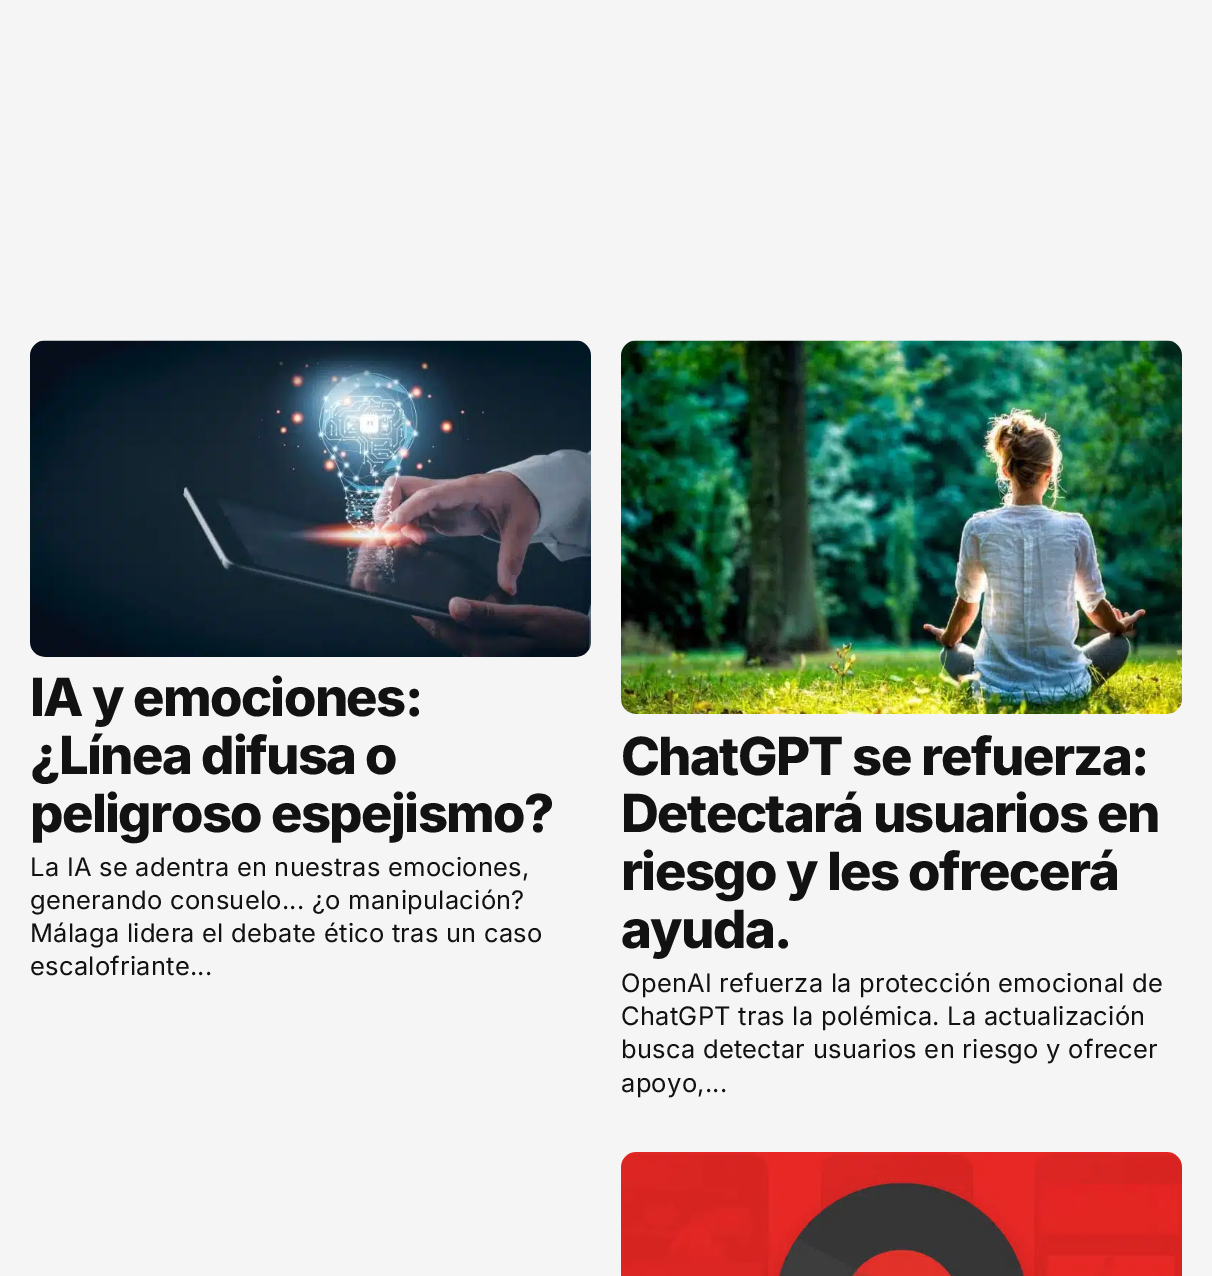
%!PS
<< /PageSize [1212 1276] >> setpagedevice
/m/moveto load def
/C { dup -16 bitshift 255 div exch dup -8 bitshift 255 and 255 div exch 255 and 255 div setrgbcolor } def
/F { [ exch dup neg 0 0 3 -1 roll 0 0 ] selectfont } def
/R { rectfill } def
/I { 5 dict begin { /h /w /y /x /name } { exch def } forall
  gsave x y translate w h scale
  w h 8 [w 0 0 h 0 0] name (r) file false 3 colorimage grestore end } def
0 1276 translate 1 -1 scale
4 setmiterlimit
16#F5F5F5 C
0 0 1212 1276 R
(1.rgb) 30 340 561 317 I
/Inter-ExtraBold 52.5 F
16#121212 C
30 716 m -1.6 0 (IA y emociones:) ashow
30 774 m -1.6 0 (¿Línea difusa o) ashow
30 832 m -1.6 0 (peligroso espejismo?) ashow
/Inter-Regular 25.5 F
30 876 m .25 0 (La IA se adentra en nuestras emociones,) ashow
30 909 m .25 0 (generando consuelo... ¿o manipulación?) ashow
30 942 m .25 0 (Málaga lidera el debate ético tras un caso) ashow
30 975 m .25 0 (escalofriante...) ashow
(2.rgb) 621 340 561 374 I
/Inter-ExtraBold 52.5 F
621 775 m -1.6 0 (ChatGPT se refuerza:) ashow
621 832 m -1.6 0 (Detectará usuarios en) ashow
621 890 m -1.6 0 (riesgo y les ofrecerá) ashow
621 948 m -1.6 0 (ayuda.) ashow
/Inter-Regular 25.5 F
621 992 m .25 0 (OpenAI refuerza la protección emocional de) ashow
621 1025 m .25 0 (ChatGPT tras la polémica. La actualización) ashow
621 1058 m .25 0 (busca detectar usuarios en riesgo y ofrecer) ashow
621 1092 m .25 0 (apoyo,...) ashow
(3.rgb) 621 1152 561 124 I
showpage
